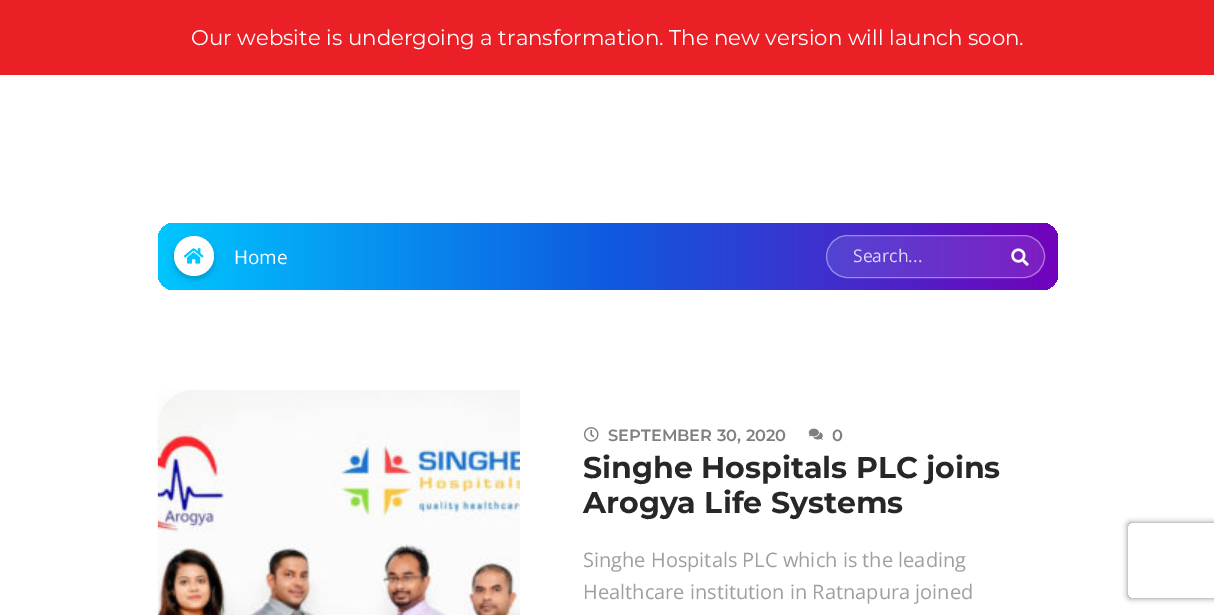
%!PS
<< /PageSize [1214 615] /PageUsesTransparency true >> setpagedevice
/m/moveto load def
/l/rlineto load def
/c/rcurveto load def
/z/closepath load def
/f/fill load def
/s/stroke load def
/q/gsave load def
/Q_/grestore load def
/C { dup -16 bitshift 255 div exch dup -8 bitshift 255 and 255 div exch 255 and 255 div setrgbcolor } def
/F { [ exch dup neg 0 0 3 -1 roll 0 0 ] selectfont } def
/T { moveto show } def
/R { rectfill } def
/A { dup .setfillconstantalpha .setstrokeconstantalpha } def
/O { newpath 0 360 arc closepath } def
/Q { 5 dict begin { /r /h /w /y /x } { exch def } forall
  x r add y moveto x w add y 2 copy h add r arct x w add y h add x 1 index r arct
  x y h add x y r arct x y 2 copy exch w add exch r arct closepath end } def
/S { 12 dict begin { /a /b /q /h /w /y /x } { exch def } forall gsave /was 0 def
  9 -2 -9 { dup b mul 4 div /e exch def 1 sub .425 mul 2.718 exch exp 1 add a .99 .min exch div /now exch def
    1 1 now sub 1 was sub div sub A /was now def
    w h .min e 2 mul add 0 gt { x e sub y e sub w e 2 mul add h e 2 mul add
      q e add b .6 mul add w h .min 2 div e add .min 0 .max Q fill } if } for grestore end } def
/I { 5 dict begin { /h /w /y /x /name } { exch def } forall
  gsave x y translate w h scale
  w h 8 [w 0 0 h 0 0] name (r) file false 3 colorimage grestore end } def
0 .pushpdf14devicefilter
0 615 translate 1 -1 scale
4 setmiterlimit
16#FFFFFF C
0 0 1214 615 R
16#EB2027 C
0 0 1214 75 R
/Montserrat-Regular 21.25 F
16#FFFFFF C
(Our website is undergoing a transformation. The new version will launch soon.) 191 45 T
q 158 223 900 67 16 Q clip newpath
<< /ShadingType 2 /ColorSpace /DeviceRGB /Coords [158 256 1058 256] /Extend [true true] /Function << /FunctionType 3 /Domain [0 1] /Functions [<< /FunctionType 2 /Domain [0 1] /C0 [0 .776 1] /C1 [.059 .353 .878] /N 1 >> << /FunctionType 2 /Domain [0 1] /C0 [.059 .353 .878] /C1 [.447 .008 .733] /N 1 >>] /Bounds [.5] /Encode [0 1 0 1] >> >> shfill Q_
16#000000 C
174 239 40 40 20 3 .2 S
16#FFFFFF C
194 256 20 O f
(1.rgb) 183 248 21 16 I
/OpenSans-Regular 19 F
(Home) 234 264 T
0.1 A
826 235 219 43 21.5 Q f
0.4 A
826.5 235.5 218 42 21 Q s
/OpenSans-Regular 17.5 F
1 A
16#DFD8F5 C
(Search...) 853 262 T
(2.rgb) 1011 248 18 18 I
(3.rgb) 157 390 363 225 I
(4.rgb) 584 427 15 15 I
/Montserrat-SemiBold 16.25 F
16#808080 C
(SEPTEMBER 30, 2020) 608 441 T
(5.rgb) 808 428 15 12 I
(0) 832 441 T
/Montserrat-Bold 30 F
16#272727 C
(Singhe Hospitals PLC joins) 583 478 T
(Arogya Life Systems) 583 513 T
/OpenSans-Regular 20 F
16#9F9F9F C
(Singhe Hospitals PLC which is the leading) 583 567 T
(Healthcare institution in Ratnapura joined) 583 599 T
q
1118 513 m 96 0 l 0 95 l -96 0 l z 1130.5 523 m 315 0 l 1.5 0 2.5 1 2.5 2.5 c 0 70 l 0 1.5 -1 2.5 -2.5 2.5 c -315 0 l -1.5 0 -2.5 -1 -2.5 -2.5 c 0 -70 l 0 -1.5 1 -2.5 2.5 -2.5 c z eoclip newpath
16#808080 C
1128 523 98 75 2.5 3 1 S
Q_
.poppdf14devicefilter showpage
